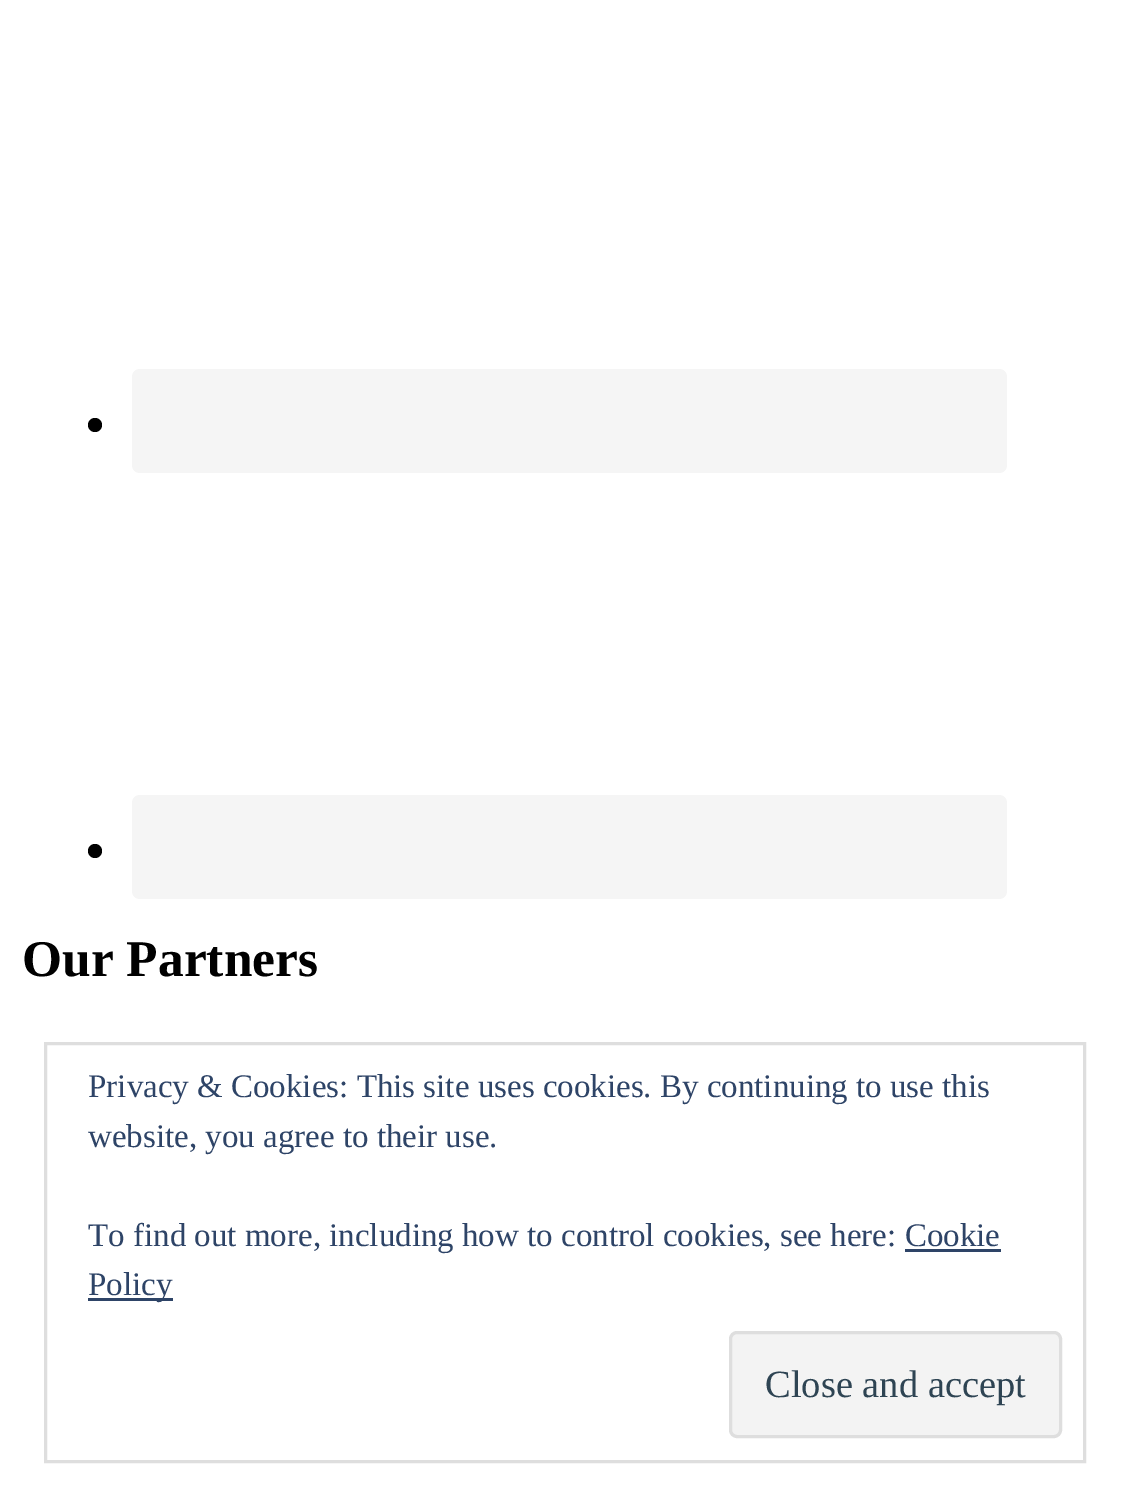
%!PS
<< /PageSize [1128 1507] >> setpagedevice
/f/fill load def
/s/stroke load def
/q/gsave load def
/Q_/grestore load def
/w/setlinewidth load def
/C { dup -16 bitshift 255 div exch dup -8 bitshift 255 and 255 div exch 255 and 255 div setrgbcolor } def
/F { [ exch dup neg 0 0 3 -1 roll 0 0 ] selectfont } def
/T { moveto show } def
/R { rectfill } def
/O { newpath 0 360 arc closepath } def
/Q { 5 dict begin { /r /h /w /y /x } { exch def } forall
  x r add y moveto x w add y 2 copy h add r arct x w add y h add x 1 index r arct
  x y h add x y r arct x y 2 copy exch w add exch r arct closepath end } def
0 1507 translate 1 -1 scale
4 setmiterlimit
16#FFFFFF C
0 0 1128 1507 R
16#000000 C
95 425 7 O f
16#F5F5F5 C
132 369 875 104 8 Q f
16#000000 C
95 851 7 O f
16#F5F5F5 C
132 795 875 104 8 Q f
/LiberationSerif-Bold 51.5 F
16#000000 C
(Our Partners) 22 976 T
16#DEDEDE C
3 w
45.5 1043.5 1039 418 rectstroke
/LiberationSerif-Regular 33 F
16#2E4467 C
(Privacy & Cookies: This site uses cookies. By continuing to use this) 88 1097 T
(website, you agree to their use.) 88 1147 T
(To find out more, including how to control cookies, see here: Cookie) 88 1246 T
88 1298 85 3 R
(Policy) 88 1295 T
905 1249 96 3 R
16#F3F3F3 C
730.5 1332.5 330 104 6.5 Q q f Q_
16#DEDEDE C
s
/LiberationSerif-Regular 38.5 F
16#2E4453 C
(Close and accept) 765 1397 T
showpage
